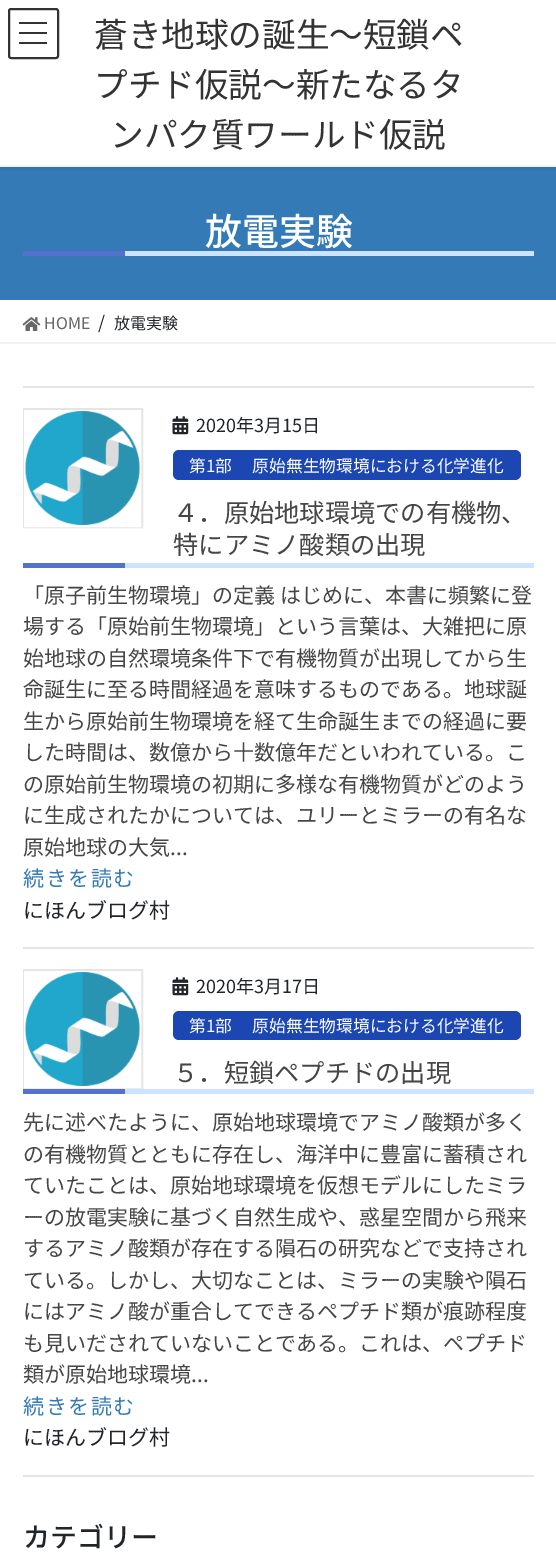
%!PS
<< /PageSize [556 1554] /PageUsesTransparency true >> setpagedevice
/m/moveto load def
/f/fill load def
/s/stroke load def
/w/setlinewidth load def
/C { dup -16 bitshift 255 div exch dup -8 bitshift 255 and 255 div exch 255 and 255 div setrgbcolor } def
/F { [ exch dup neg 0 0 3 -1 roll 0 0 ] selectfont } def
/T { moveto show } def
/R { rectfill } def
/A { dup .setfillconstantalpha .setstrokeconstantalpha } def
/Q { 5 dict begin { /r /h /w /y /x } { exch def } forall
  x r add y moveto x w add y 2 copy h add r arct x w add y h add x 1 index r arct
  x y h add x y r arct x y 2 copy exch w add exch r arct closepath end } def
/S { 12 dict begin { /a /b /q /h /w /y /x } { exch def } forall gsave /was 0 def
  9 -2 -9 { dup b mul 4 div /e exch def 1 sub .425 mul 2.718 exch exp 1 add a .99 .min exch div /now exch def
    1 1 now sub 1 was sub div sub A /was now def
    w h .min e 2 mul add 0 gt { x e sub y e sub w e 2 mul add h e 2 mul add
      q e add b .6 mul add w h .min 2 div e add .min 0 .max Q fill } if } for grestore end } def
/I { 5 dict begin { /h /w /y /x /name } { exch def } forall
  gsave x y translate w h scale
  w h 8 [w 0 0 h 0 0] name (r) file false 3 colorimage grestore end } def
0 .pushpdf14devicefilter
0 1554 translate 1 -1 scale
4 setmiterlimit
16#FFFFFF C
0 0 556 1554 R
16#337AB7 C
0 167 556 133 R
16#000000 C
0 2 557 166 0 2 .1 S
16#FFFFFF C
0 0 556 165 R
16#333333 C
19 22 28 2 R
19 32 28 2 R
19 42 28 2 R
2 w
9 9 49 49 2 Q s
16#F2F2F2 C
0 165 556 2 R
/NotoSansJP-Regular 33.6 F
16#333333 C
(蒼き地球の誕生〜短鎖ペ) 94 47 T
(プチド仮説〜新たなるタ) 94 97 T
(ンパク質ワールド仮説) 110 147 T
16#CCE4FF C
125 251 409 5 R
/NotoSansJP-Medium 37 F
16#FFFFFF C
(放電実験) 205 245 T
16#5472CD C
23 251 102 5 R
16#F2F2F2 C
0 342 556 2 R
(1.rgb) 22 317 19 14 I
/NotoSansJP-Regular 16 F
16#666666 C
(HOME) 44 329 T
/NotoSansJP-Regular 18 F
16#212529 C
(/) 98 329 T
/NotoSansJP-Regular 16 F
(放電実験) 114 329 T
16#E5E5E5 C
23 386 511 2 R
23 947 511 2 R
24 409 118 118 rectstroke
16#FFFFFF C
25 411 115 115 rectstroke
(2.rgb) 25 411 115 114 I
(3.rgb) 172 416 17 19 I
/NotoSansJP-Regular 18 F
16#212529 C
(2020年3月15日) 196 432 T
16#1C47B2 C
173 450 348 30 6 Q f
/NotoSansJP-Regular 16.75 F
16#FFFFFF C
(第1部 　原始無生物環境における化学進化) 189 472 T
16#CCE4FF C
125 563 409 5 R
/NotoSansJP-Regular 25.25 F
16#464646 C
(４．原始地球環境での有機物、) 173 522 T
(特にアミノ酸類の出現) 173 554 T
16#5472CD C
23 563 102 5 R
/NotoSansJP-Regular 21 F
16#464646 C
(「原子前生物環境」の定義 はじめに、本書に頻繁に登) 23 603 T
(場する「原始前生物環境」という言葉は、大雑把に原) 23 634 T
(始地球の自然環境条件下で有機物質が出現してから生) 23 666 T
(命誕生に至る時間経過を意味するものである。地球誕) 23 697 T
(生から原始前生物環境を経て生命誕生までの経過に要) 23 729 T
(した時間は、数億から十数億年だといわれている。こ) 23 760 T
(の原始前生物環境の初期に多様な有機物質がどのよう) 23 792 T
(に生成されたかについては、ユリーとミラーの有名な) 23 823 T
(原始地球の大気...) 23 855 T
16#337AB7 C
23 886 m 1.5 0 (続きを読む) ashow
16#212529 C
(にほんブログ村) 23 918 T
16#E5E5E5 C
23 1475 511 2 R
24 970 118 118 rectstroke
16#FFFFFF C
25 972 115 115 rectstroke
(2.rgb) 25 972 115 114 I
(3.rgb) 172 977 17 19 I
/NotoSansJP-Regular 18 F
16#212529 C
(2020年3月17日) 196 993 T
16#1C47B2 C
173 1011 348 29 6 Q f
/NotoSansJP-Regular 16.75 F
16#FFFFFF C
(第1部 　原始無生物環境における化学進化) 189 1032 T
16#CCE4FF C
125 1089 409 5 R
/NotoSansJP-Regular 25.25 F
16#464646 C
(５．短鎖ペプチドの出現) 173 1082 T
16#5472CD C
23 1089 102 5 R
/NotoSansJP-Regular 21 F
16#464646 C
(先に述べたように、原始地球環境でアミノ酸類が多く) 23 1130 T
(の有機物質とともに存在し、海洋中に豊富に蓄積され) 23 1162 T
(ていたことは、原始地球環境を仮想モデルにしたミラ) 23 1193 T
(ーの放電実験に基づく自然生成や、惑星空間から飛来) 23 1225 T
(するアミノ酸類が存在する隕石の研究などで支持され) 23 1256 T
(ている。しかし、大切なことは、ミラーの実験や隕石) 23 1288 T
(にはアミノ酸が重合してできるペプチド類が痕跡程度) 23 1319 T
(も見いだされていないことである。これは、ペプチド) 23 1351 T
(類が原始地球環境...) 23 1382 T
16#337AB7 C
23 1414 m 1.5 0 (続きを読む) ashow
16#212529 C
(にほんブログ村) 23 1445 T
/NotoSansJP-Medium 27 F
(カテゴリー) 23 1547 T
.poppdf14devicefilter showpage
